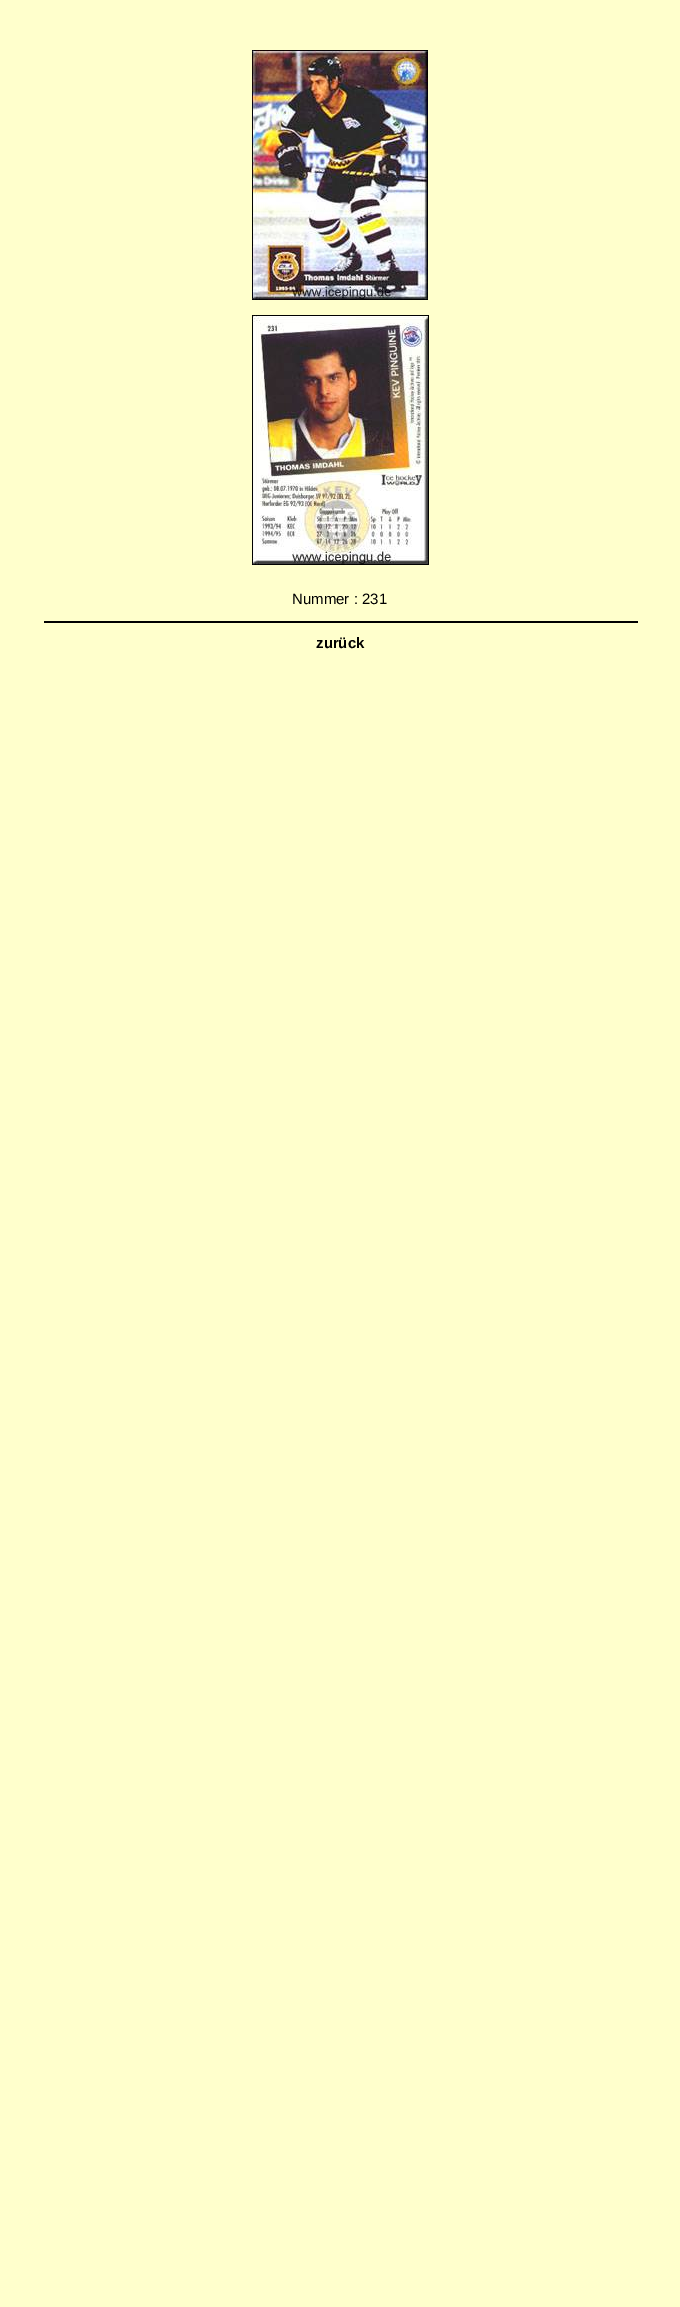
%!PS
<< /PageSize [680 2307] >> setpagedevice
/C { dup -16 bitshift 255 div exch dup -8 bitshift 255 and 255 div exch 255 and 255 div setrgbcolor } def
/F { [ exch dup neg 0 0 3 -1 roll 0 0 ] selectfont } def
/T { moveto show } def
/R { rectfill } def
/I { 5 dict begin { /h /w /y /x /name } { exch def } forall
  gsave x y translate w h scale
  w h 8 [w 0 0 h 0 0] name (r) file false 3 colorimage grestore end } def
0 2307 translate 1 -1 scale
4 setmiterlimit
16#FFFFCC C
0 0 680 2307 R
(1.rgb) 252 50 176 250 I
(2.rgb) 252 315 177 250 I
/LiberationSans-Regular 15 F
16#000000 C
(Nummer : 231) 292 604 T
44 621 594 2 R
/LiberationSans-Bold 15 F
(zurück) 316 648 T
showpage
